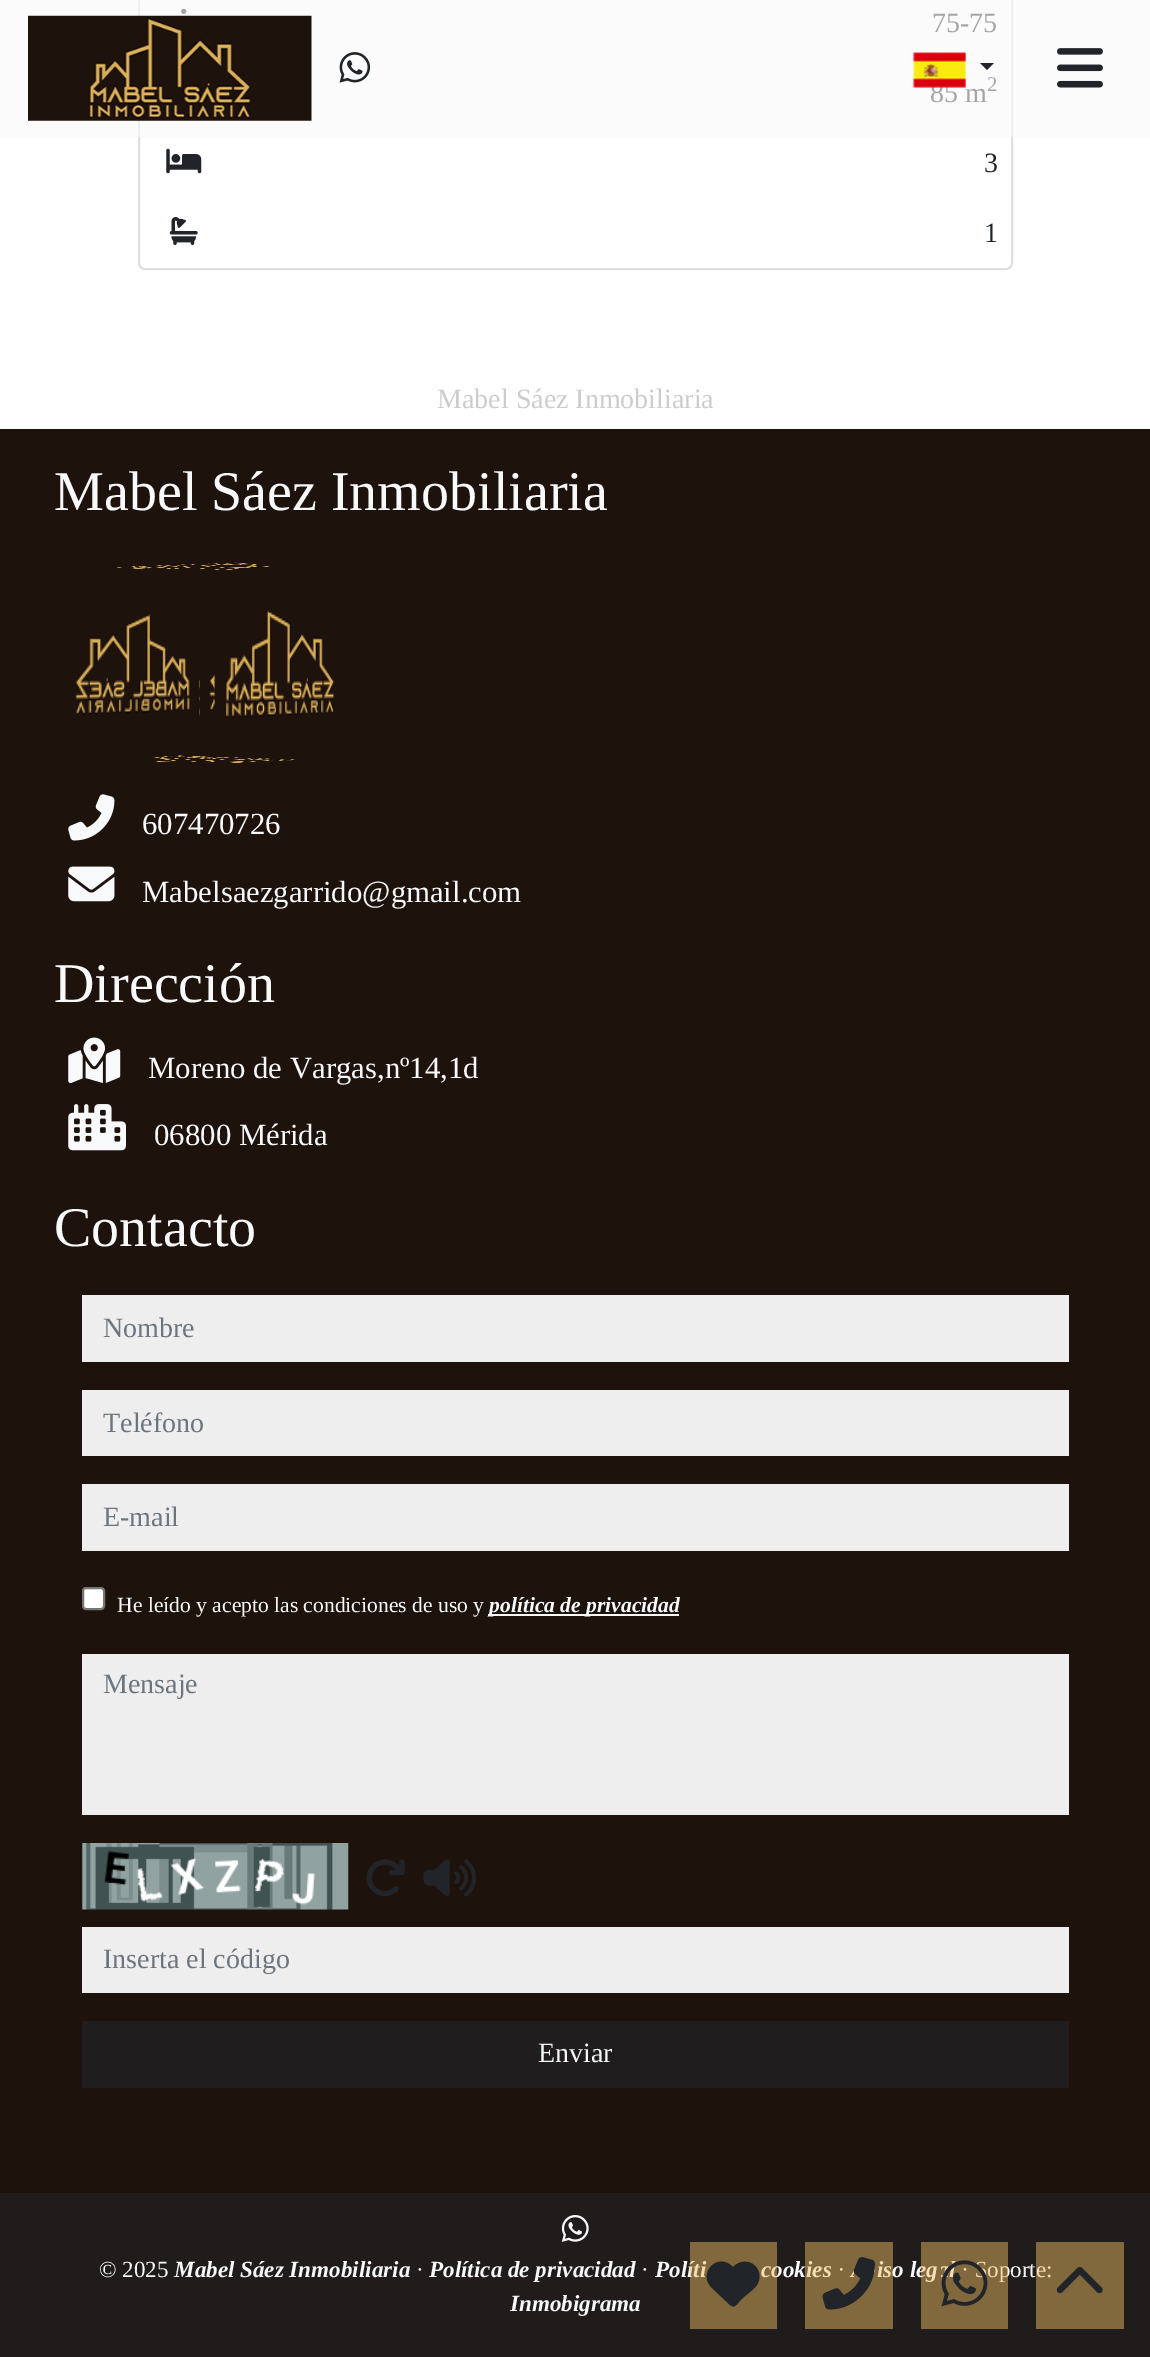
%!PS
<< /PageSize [1150 2357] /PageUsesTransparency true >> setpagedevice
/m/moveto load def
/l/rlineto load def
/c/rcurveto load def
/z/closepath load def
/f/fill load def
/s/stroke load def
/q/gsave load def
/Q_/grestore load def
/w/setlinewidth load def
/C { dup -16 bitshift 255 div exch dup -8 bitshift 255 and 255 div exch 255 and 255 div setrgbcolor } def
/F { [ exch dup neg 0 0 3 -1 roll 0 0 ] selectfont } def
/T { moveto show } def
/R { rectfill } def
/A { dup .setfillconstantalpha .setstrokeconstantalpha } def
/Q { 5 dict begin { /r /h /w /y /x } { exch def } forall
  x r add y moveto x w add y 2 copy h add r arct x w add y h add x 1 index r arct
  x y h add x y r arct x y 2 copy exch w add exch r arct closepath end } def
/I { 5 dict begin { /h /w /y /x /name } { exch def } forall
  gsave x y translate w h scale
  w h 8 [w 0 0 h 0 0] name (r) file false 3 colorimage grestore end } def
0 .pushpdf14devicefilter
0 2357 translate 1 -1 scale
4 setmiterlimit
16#FFFFFF C
0 0 1150 2357 R
16#DFDFDF C
2 w
139 -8 873 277 6 Q s
(5.rgb) 181 8 6 6 I
/LiberationSerif-Regular 28 F
16#212529 C
(75-75) 932 32 T
(85 m) 930 102 T
/LiberationSerif-Regular 21 F
(2) 987 91 T
0.6 A
16#F8F9FA C
0 0 1150 137 R
1 A
(1.rgb) 28 15 284 106 I
(2.rgb) 339 52 32 31 I
(3.rgb) 912 52 54 36 I
16#212529 C
980 63 m 14 0 l -7 7 l z f
(4.rgb) 1057 48 46 40 I
(6.rgb) 166 148 36 26 I
/LiberationSerif-Regular 28 F
(3) 984 172 T
(7.rgb) 169 217 29 28 I
(1) 984 242 T
16#CCCCCC C
(Mabel Sáez Inmobiliaria) 437 408 T
16#1E120D C
0 429 1150 1764 R
/LiberationSerif-Regular 56 F
16#F8F9FA C
(Mabel Sáez Inmobiliaria) 54 510 T
(8.rgb) 117 562 153 8 I
(9.rgb) 75 610 129 109 I
(12.rgb) 199 614 132 105 I
(10.rgb) 75 610 125 108 I
(11.rgb) 214 610 121 108 I
(13.rgb) 153 755 149 8 I
(14.rgb) 68 794 47 47 I
/LiberationSerif-Regular 30.75 F
(607470726) 142 834 T
(15.rgb) 68 866 47 36 I
(Mabelsaezgarrido@gmail.com) 142 902 T
/LiberationSerif-Regular 56 F
(Dirección) 54 1002 T
(16.rgb) 68 1037 53 47 I
/LiberationSerif-Regular 30.75 F
(Moreno de Vargas,nº14,1d) 148 1078 T
(17.rgb) 68 1104 58 47 I
(06800 Mérida) 154 1145 T
/LiberationSerif-Regular 56 F
(Contacto) 54 1246 T
16#EEEEEE C
82 1295 987 67 R
/LiberationSerif-Regular 28 F
16#6C757D C
(Nombre) 103 1337 T
16#EEEEEE C
82 1390 987 66 R
16#6C757D C
(Teléfono) 103 1432 T
16#EEEEEE C
82 1484 987 67 R
16#6C757D C
(E-mail) 103 1526 T
16#FFFFFF C
83 1588 21 21 3 Q q f Q_
16#767676 C
s
/LiberationSerif-Regular 21.6 F
16#F8F9FA C
(He leído y acepto las condiciones de uso y) 117 1612 T
488 1614 191 2 R
/LiberationSerif-BoldItalic 21.6 F
(política de privacidad) 489 1612 T
16#EEEEEE C
82 1654 987 161 R
/LiberationSerif-Regular 28 F
16#6C757D C
(Mensaje) 103 1693 T
(18.rgb) 82 1843 267 67 I
(19.rgb) 366 1859 39 37 I
(20.rgb) 423 1859 53 38 I
16#EEEEEE C
82 1927 987 66 R
16#6C757D C
(Inserta el código) 103 1968 T
16#201D1E C
82 2021 987 67 R
16#F8F9FA C
(Enviar) 538 2062 T
16#201C1C C
0 2193 1150 164 R
(21.rgb) 561 2215 28 27 I
/LiberationSerif-Regular 23.1 F
16#F8F9FA C
(© 2025) 99 2277 T
/LiberationSerif-BoldItalic 23.1 F
(Mabel Sáez Inmobiliaria) 174 2277 T
/LiberationSerif-Regular 23.1 F
(·) 416 2277 T
/LiberationSerif-BoldItalic 23.1 F
(Política de privacidad) 429 2277 T
/LiberationSerif-Regular 23.1 F
(·) 641 2277 T
/LiberationSerif-BoldItalic 23.1 F
(Políti) 655 2277 T
(cookies) 761 2277 T
/LiberationSerif-Regular 23.1 F
(·) 837 2277 T
/LiberationSerif-BoldItalic 23.1 F
(iso leg) 877 2277 T
/LiberationSerif-Regular 23.1 F
(·) 961 2277 T
(oporte:) 987 2277 T
/LiberationSerif-BoldItalic 23.1 F
(Inmobigrama) 510 2311 T
0.47 A
16#EFC062 C
690 2242 87 87 R
1 A
16#212529 C
712 2288 m 18 17 l -18 -17 l 15 14 l 6 6 7 6 12 0 c 6 -6 l 5 -4 11 -8 13 -13 c 7 -16 -12 -29 -25 -16 c -16 -16 -36 7 -21 21 c z f
0.47 A
16#EFC062 C
805 2242 88 87 R
1 A
(22.rgb) 822 2257 53 53 I
0.47 A
921 2242 87 87 R
1 A
(23.rgb) 941 2260 47 47 I
0.47 A
1036 2242 88 87 R
1 A
(24.rgb) 1056 2267 47 27 I
.poppdf14devicefilter showpage
